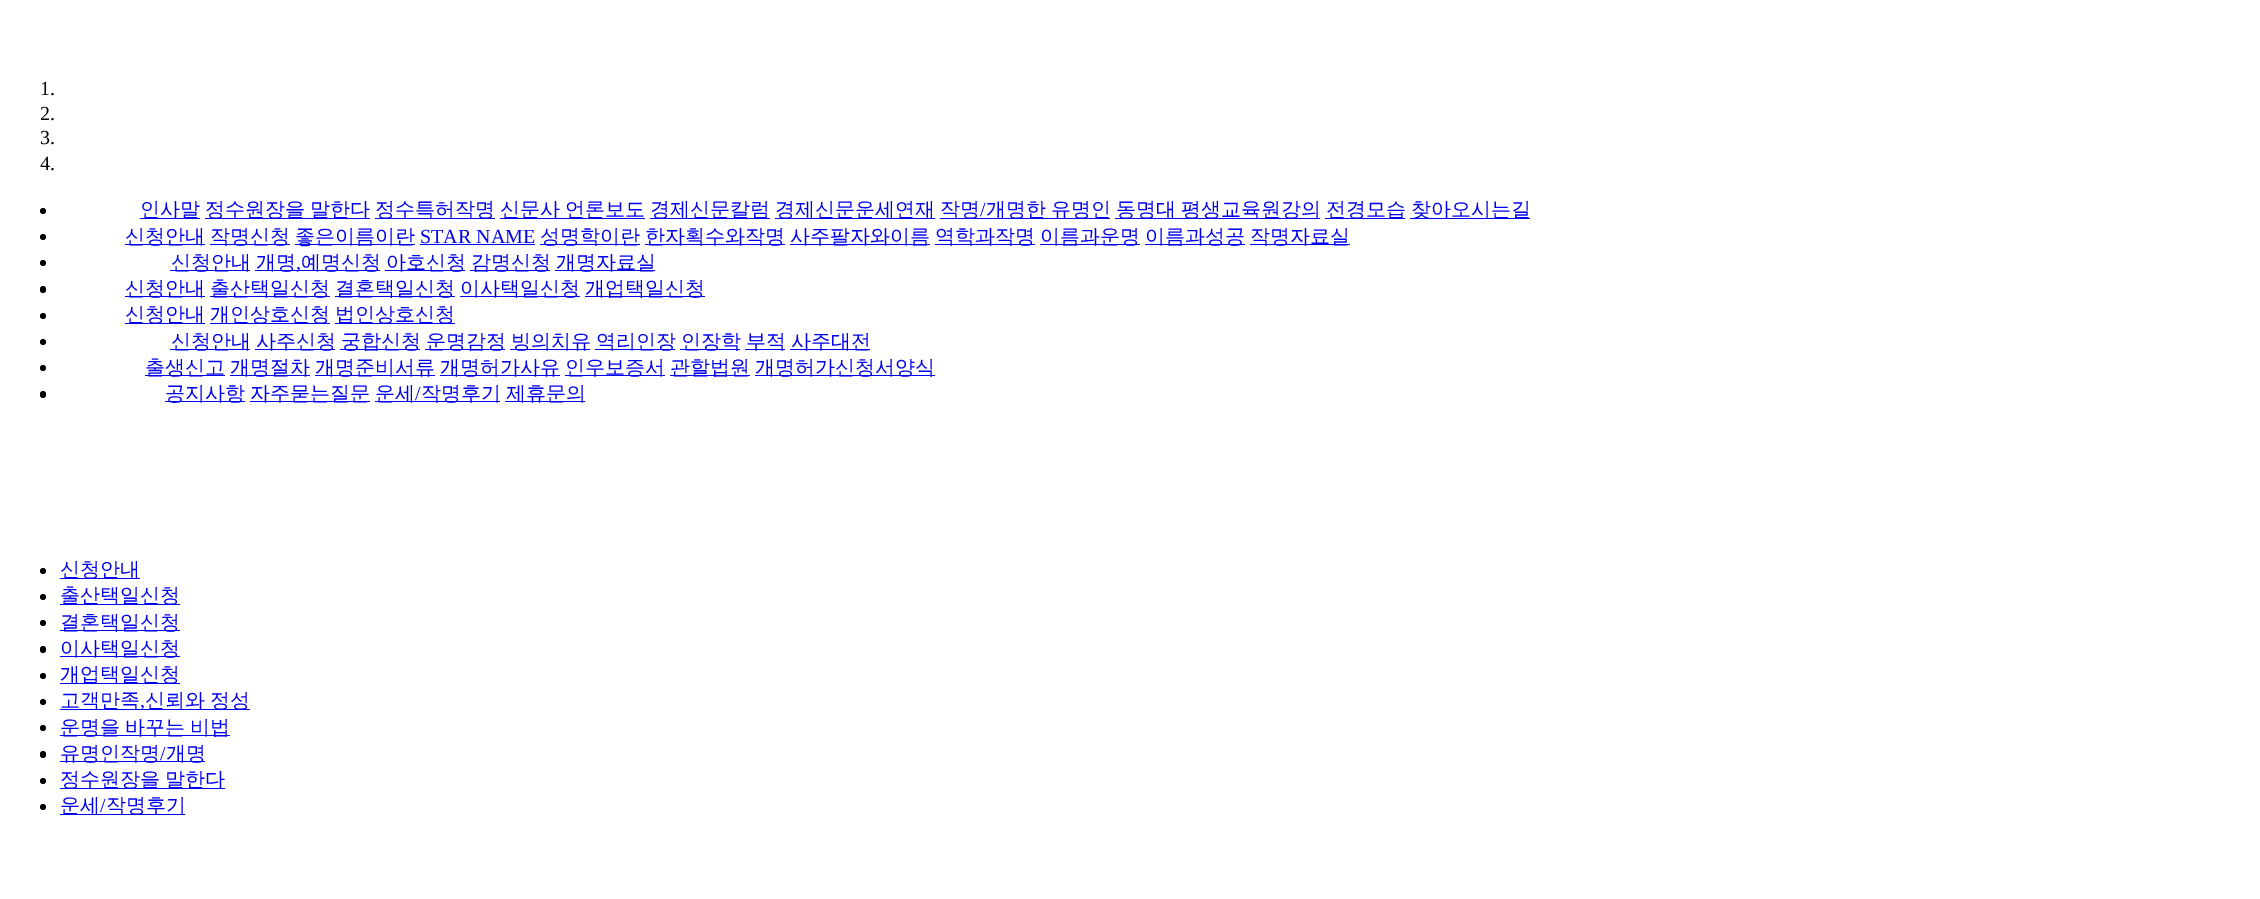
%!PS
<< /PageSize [2260 899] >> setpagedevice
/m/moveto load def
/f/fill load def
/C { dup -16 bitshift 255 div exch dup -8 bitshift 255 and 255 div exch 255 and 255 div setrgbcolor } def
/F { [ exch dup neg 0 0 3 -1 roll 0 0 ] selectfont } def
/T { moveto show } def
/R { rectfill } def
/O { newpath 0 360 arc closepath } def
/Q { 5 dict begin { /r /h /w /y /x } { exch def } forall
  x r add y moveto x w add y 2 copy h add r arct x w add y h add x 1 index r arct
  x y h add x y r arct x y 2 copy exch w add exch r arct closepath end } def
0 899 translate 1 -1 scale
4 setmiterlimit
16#FFFFFF C
0 0 2260 899 R
/LiberationSerif-Regular 20 F
16#000000 C
(1.) 40 95 T
(2.) 40 120 T
(3.) 40 144 T
(4.) 40 170 T
43 211 3 O f
16#0000EE C
140 218 60 1 R
/WenQuanYiZenHei-Medium 20 F
(인사말) 140 216 T
205 218 165 1 R
205 216 m -1 0 32 (정수원장을 말한다) widthshow
375 218 120 1 R
(정수특허작명) 375 216 T
500 218 145 1 R
500 216 m -1 0 32 (신문사 언론보도) widthshow
650 218 120 1 R
(경제신문칼럼) 650 216 T
775 218 160 1 R
(경제신문운세연재) 775 216 T
940 218 170 1 R
(작명) 940 216 T
/LiberationSerif-Regular 20 F
(/) 980 216 T
/WenQuanYiZenHei-Medium 20 F
986 216 m -1 0 32 (개명한 유명인) widthshow
1115 218 205 1 R
1116 216 m -1 0 32 (동명대 평생교육원강의) widthshow
1325 218 80 1 R
(전경모습) 1326 216 T
1410 218 120 1 R
(찾아오시는길) 1411 216 T
16#000000 C
43 237 3 O f
16#0000EE C
125 244 80 1 R
(신청안내) 125 243 T
210 244 80 1 R
(작명신청) 210 243 T
295 244 120 1 R
(좋은이름이란) 295 243 T
/LiberationSerif-Regular 20 F
(STAR NAME) 420 243 T
420 244 115 1 R
540 244 100 1 R
/WenQuanYiZenHei-Medium 20 F
(성명학이란) 540 243 T
645 244 140 1 R
(한자획수와작명) 645 243 T
790 244 140 1 R
(사주팔자와이름) 790 243 T
935 244 100 1 R
(역학과작명) 935 243 T
1040 244 100 1 R
(이름과운명) 1040 243 T
1145 244 100 1 R
(이름과성공) 1145 243 T
1250 244 100 1 R
(작명자료실) 1250 243 T
16#000000 C
43 263 3 O f
16#0000EE C
170 270 80 1 R
(신청안내) 171 269 T
255 270 125 1 R
(개명) 256 269 T
(예명신청) 301 269 T
385 270 80 1 R
(아호신청) 386 269 T
470 270 80 1 R
(감명신청) 471 269 T
555 270 100 1 R
(개명자료실) 556 269 T
/LiberationSerif-Regular 20 F
(,) 296 269 T
16#000000 C
40 286 6 7 3 Q f
16#0000EE C
125 296 80 1 R
/WenQuanYiZenHei-Medium 20 F
(신청안내) 125 295 T
210 296 120 1 R
(출산택일신청) 210 295 T
335 296 120 1 R
(결혼택일신청) 335 295 T
460 296 120 1 R
(이사택일신청) 460 295 T
585 296 120 1 R
(개업택일신청) 585 295 T
16#000000 C
43 316 3 O f
16#0000EE C
125 323 80 1 R
(신청안내) 125 321 T
210 323 120 1 R
(개인상호신청) 210 321 T
335 323 120 1 R
(법인상호신청) 335 321 T
16#000000 C
43 342 3 O f
16#0000EE C
170 349 80 1 R
(신청안내) 171 348 T
255 349 80 1 R
(사주신청) 256 348 T
340 349 80 1 R
(궁합신청) 341 348 T
425 349 80 1 R
(운명감정) 426 348 T
510 349 80 1 R
(빙의치유) 511 348 T
595 349 80 1 R
(역리인장) 596 348 T
680 349 60 1 R
(인장학) 681 348 T
745 349 40 1 R
(부적) 746 348 T
790 349 80 1 R
(사주대전) 791 348 T
16#000000 C
43 368 3 O f
16#0000EE C
145 375 80 1 R
(출생신고) 145 374 T
230 375 80 1 R
(개명절차) 230 374 T
315 375 120 1 R
(개명준비서류) 315 374 T
440 375 120 1 R
(개명허가사유) 440 374 T
565 375 100 1 R
(인우보증서) 565 374 T
670 375 80 1 R
(관할법원) 670 374 T
755 375 180 1 R
(개명허가신청서양식) 755 374 T
16#000000 C
40 391 6 7 3 Q f
16#0000EE C
165 401 80 1 R
(공지사항) 165 400 T
250 401 120 1 R
(자주묻는질문) 250 400 T
375 401 125 1 R
(운세) 375 400 T
/LiberationSerif-Regular 20 F
(/) 415 400 T
/WenQuanYiZenHei-Medium 20 F
(작명후기) 421 400 T
505 401 80 1 R
(제휴문의) 506 400 T
16#000000 C
43 571 3 O f
16#0000EE C
60 578 80 1 R
(신청안내) 60 576 T
16#000000 C
43 597 3 O f
16#0000EE C
60 604 120 1 R
(출산택일신청) 60 602 T
16#000000 C
43 623 3 O f
16#0000EE C
60 630 120 1 R
(결혼택일신청) 60 629 T
16#000000 C
40 646 6 7 3 Q f
16#0000EE C
60 656 120 1 R
(이사택일신청) 60 655 T
16#000000 C
43 676 3 O f
16#0000EE C
60 683 120 1 R
(개업택일신청) 60 681 T
16#000000 C
43 702 3 O f
16#0000EE C
60 709 190 1 R
(고객만족) 60 707 T
145 707 m -1 0 32 (신뢰와 정성) widthshow
/LiberationSerif-Regular 20 F
(,) 140 707 T
16#000000 C
43 728 3 O f
16#0000EE C
60 735 170 1 R
/WenQuanYiZenHei-Medium 20 F
60 734 m -1 0 32 (운명을 바꾸는 비법) widthshow
16#000000 C
40 751 6 7 3 Q f
16#0000EE C
60 761 145 1 R
(유명인작명) 60 760 T
/LiberationSerif-Regular 20 F
(/) 160 760 T
/WenQuanYiZenHei-Medium 20 F
(개명) 166 760 T
16#000000 C
43 781 3 O f
16#0000EE C
60 788 165 1 R
60 786 m -1 0 32 (정수원장을 말한다) widthshow
16#000000 C
43 807 3 O f
16#0000EE C
60 814 125 1 R
(운세) 60 812 T
/LiberationSerif-Regular 20 F
(/) 100 812 T
/WenQuanYiZenHei-Medium 20 F
(작명후기) 106 812 T
showpage
